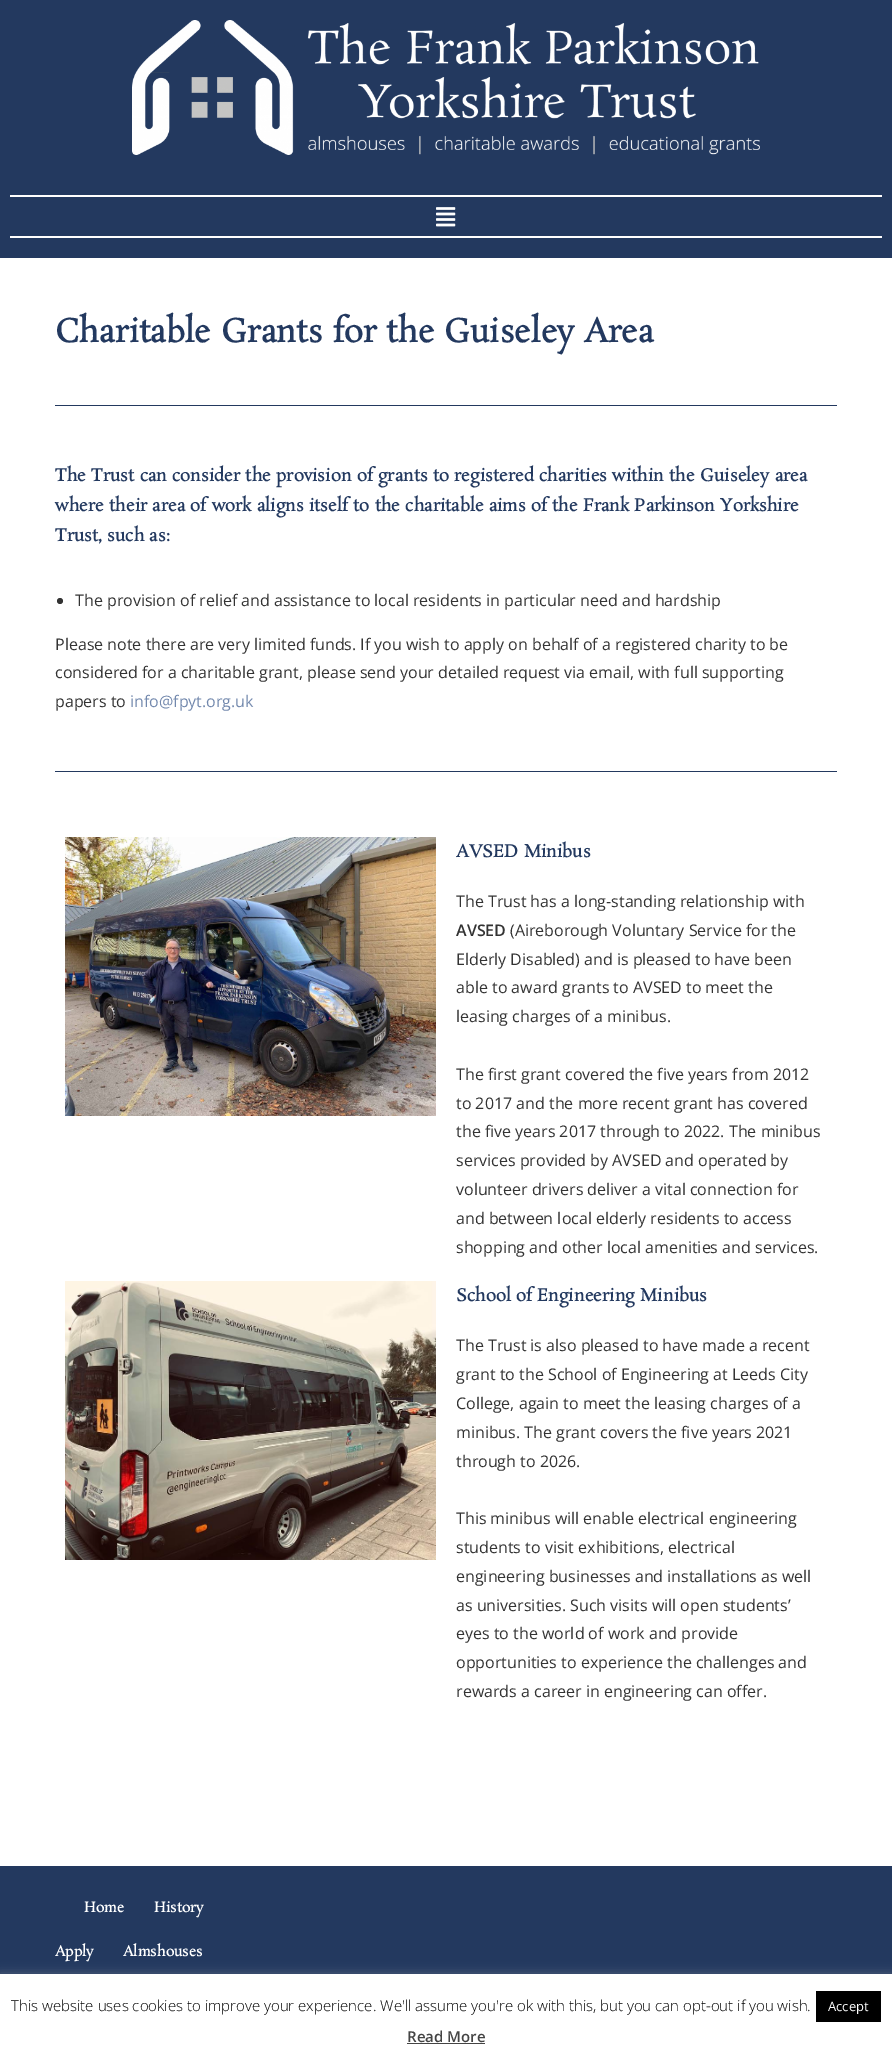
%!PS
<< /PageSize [892 2062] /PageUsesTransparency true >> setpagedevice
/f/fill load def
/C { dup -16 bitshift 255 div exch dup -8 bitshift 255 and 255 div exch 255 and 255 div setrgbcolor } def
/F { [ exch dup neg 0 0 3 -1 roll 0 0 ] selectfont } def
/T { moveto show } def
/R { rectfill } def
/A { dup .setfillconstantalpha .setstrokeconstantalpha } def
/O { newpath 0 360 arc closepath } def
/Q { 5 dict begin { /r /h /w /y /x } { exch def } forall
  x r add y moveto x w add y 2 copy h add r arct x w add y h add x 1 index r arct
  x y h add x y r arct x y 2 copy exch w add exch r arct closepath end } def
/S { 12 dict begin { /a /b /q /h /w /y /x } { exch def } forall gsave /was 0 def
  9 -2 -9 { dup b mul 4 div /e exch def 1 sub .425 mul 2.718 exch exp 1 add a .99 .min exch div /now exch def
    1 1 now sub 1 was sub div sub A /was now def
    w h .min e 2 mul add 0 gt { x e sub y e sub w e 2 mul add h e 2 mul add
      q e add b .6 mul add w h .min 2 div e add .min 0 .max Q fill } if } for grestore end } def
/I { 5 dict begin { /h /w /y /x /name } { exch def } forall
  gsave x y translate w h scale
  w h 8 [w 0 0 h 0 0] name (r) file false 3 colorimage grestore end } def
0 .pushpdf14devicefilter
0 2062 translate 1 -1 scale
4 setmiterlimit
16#FFFFFF C
0 0 892 2062 R
16#23395F C
0 0 892 258 R
(1.rgb) 132 20 628 135 I
16#FFFFFF C
10 195 872 2 R
10 236 872 2 R
(2.rgb) 436 207 20 20 I
/Rosarivo-Bold 32 F
16#23395F C
(Charitable Grants for the Guiseley Area) 55 342 T
55 405 782 1 R
/Rosarivo-Bold 17 F
(The Trust can consider the provision of grants to registered charities within the Guiseley area) 55 481 T
(where their area of work aligns itself to the charitable aims of the Frank Parkinson Yorkshire) 55 511 T
(Trust, such as:) 55 541 T
16#333333 C
60 601 3 O f
/OpenSans-Regular 16 F
(The provision of relief and assistance to local residents in particular need and hardship) 75 606 T
(Please note there are very limited funds. If you wish to apply on behalf of a registered charity to be) 55 650 T
(considered for a charitable grant, please send your detailed request via email, with full supporting) 55 678 T
(papers to) 55 707 T
16#7288AD C
(info@fpyt.org.uk) 130 707 T
16#23395F C
55 771 782 1 R
(3.rgb) 65 837 371 279 I
/Rosarivo-Bold 17 F
(AVSED Minibus) 456 857 T
/OpenSans-Regular 16 F
16#333333 C
(The Trust has a long-standing relationship with) 456 907 T
/OpenSans-SemiBold 16 F
(AVSED) 456 936 T
/OpenSans-Regular 16 F
(\(Aireborough Voluntary Service for the) 510 936 T
(Elderly Disabled\) and is pleased to have been) 456 965 T
(able to award grants to AVSED to meet the) 456 993 T
(leasing charges of a minibus.) 456 1022 T
(The first grant covered the five years from 2012) 456 1080 T
(to 2017 and the more recent grant has covered) 456 1109 T
(the five years 2017 through to 2022. The minibus) 456 1137 T
(services provided by AVSED and operated by) 456 1166 T
(volunteer drivers deliver a vital connection for) 456 1195 T
(and between local elderly residents to access) 456 1224 T
(shopping and other local amenities and services.) 456 1253 T
(4.rgb) 65 1281 371 279 I
/Rosarivo-Bold 17 F
16#23395F C
(School of Engineering Minibus) 456 1301 T
/OpenSans-Regular 16 F
16#333333 C
(The Trust is also pleased to have made a recent) 456 1351 T
(grant to the School of Engineering at Leeds City) 456 1380 T
(College, again to meet the leasing charges of a) 456 1409 T
(minibus. The grant covers the five years 2021) 456 1438 T
(through to 2026.) 456 1467 T
(This minibus will enable electrical engineering) 456 1524 T
(students to visit exhibitions, electrical) 456 1553 T
(engineering businesses and installations as well) 456 1582 T
(as universities. Such visits will open students’) 456 1611 T
(eyes to the world of work and provide) 456 1639 T
(opportunities to experience the challenges and) 456 1668 T
(rewards a career in engineering can offer.) 456 1697 T
16#23395F C
0 1866 892 108 R
/Rosarivo-Bold 14 F
16#FFFFFF C
(Home) 84 1912 T
(History) 154 1912 T
(Apply) 55 1956 T
(Almshouses) 123 1956 T
16#ACABAB C
0 1973 892 88 0 5 .3 S
16#FFFFFF C
0 1974 892 88 R
/OpenSans-Light 15 F
16#000000 C
(This website uses cookies to improve your experience. We'll assume you're ok with this, but you can opt-out if you wish.) 11 2011 T
816 1991 65 31 R
/OpenSans-Regular 13 F
16#FFFFFF C
(Accept) 828 2011 T
/OpenSans-SemiBold 15 F
16#444444 C
(Read More) 407 2042 T
407 2043 78 1 R
.poppdf14devicefilter showpage
